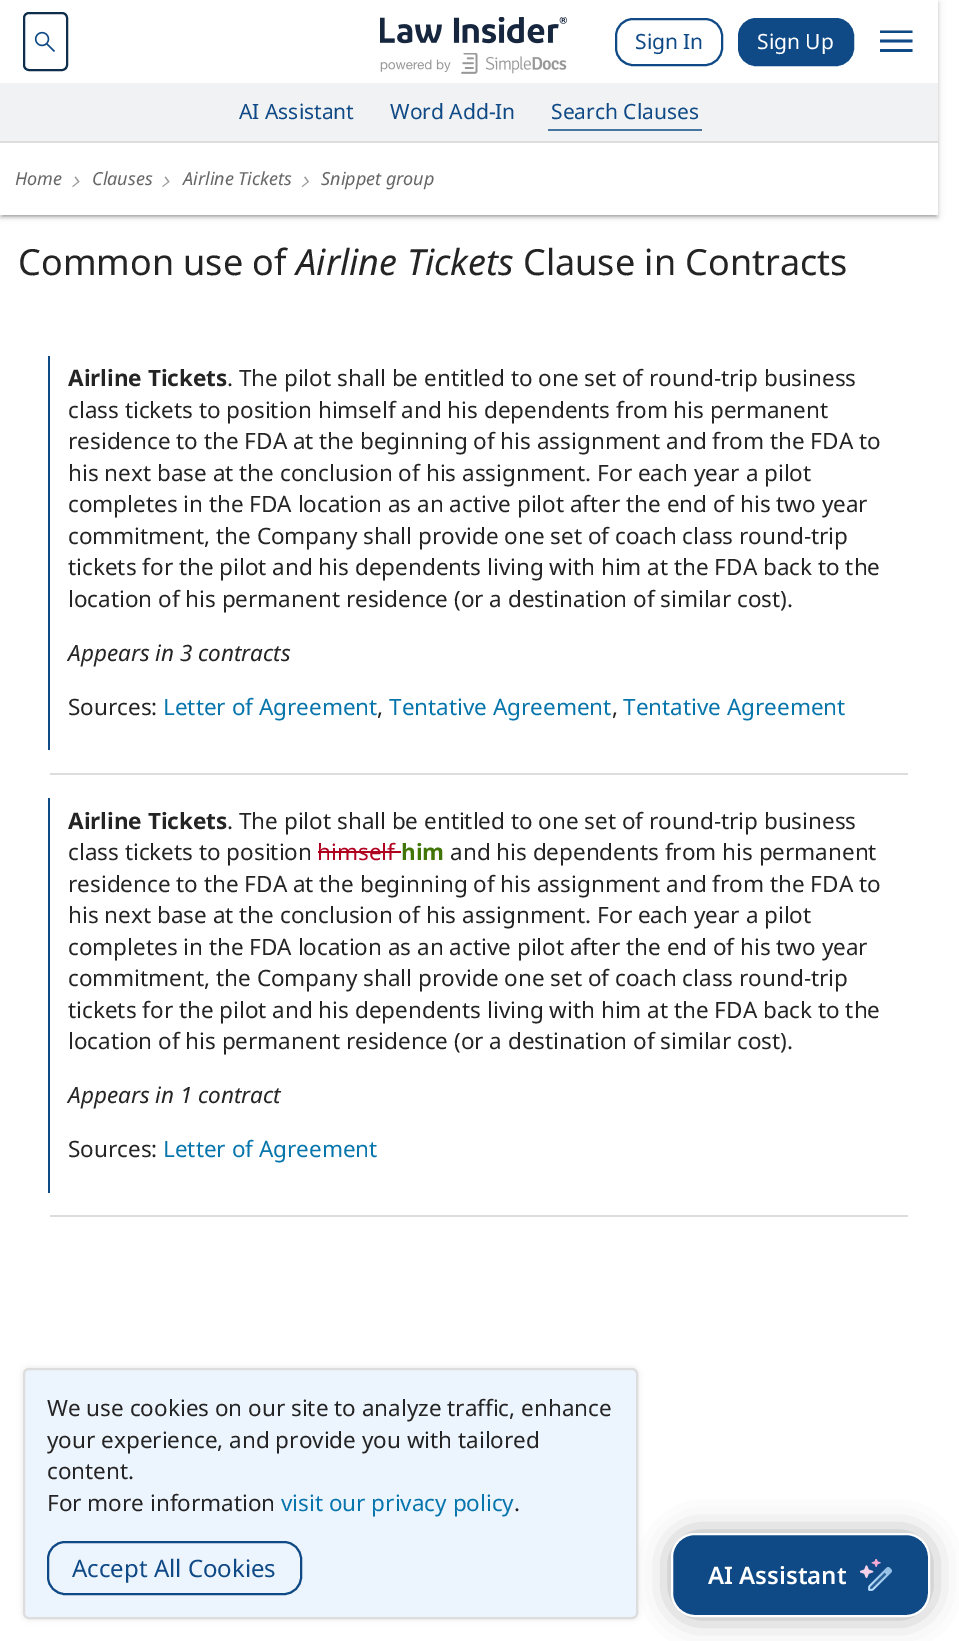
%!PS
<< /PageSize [959 1641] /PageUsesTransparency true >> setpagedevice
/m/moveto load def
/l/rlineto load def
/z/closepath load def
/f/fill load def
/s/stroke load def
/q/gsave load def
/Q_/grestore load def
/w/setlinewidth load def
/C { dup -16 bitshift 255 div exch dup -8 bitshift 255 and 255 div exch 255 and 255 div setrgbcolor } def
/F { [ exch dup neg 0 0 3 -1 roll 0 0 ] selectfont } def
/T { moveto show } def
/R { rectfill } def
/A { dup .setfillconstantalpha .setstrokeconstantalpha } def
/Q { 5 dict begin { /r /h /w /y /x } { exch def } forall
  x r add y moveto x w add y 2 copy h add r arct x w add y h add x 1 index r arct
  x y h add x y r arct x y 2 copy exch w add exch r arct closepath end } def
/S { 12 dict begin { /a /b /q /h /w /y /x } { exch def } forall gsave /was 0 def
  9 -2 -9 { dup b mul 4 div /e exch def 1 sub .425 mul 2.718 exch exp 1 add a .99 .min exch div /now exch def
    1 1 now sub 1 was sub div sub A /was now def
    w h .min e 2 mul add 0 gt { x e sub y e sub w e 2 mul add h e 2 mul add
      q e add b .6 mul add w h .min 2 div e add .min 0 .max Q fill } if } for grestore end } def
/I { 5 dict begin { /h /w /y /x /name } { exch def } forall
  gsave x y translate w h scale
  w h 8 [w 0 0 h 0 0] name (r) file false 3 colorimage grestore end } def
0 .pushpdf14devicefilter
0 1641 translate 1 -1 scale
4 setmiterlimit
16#FFFFFF C
0 0 959 1641 R
16#000000 C
0 2 938 214 0 4 .12 S
0 3 938 215 0 1.5 .14 S
3 8 932 208 0 1 .2 S
16#FFFFFF C
0 0 938 215 R
16#0F2E4B C
2 w
24 13 43 57 5 Q s
(1.rgb) 34 31 21 21 I
(2.rgb) 380 17 187 27 I
(3.rgb) 380 53 187 21 I
16#0F4A86 C
616 19 106 46 17 Q s
/NotoSans-Regular 21 F
(Sign In) 635 49 T
739 19 114 46 17 Q q f Q_
s
16#FFFFFF C
(Sign Up) 757 49 T
16#0F4A86 C
880 52 m 0 -3 l 32.5 0 l 0 3 l z 880 42.5 m 0 -3 l 32.5 0 l 0 3 l z 880 33 m 0 -2.5 l 32.5 0 l 0 2.5 l z f
16#F1F2F3 C
0 83 938 58 R
16#0F4A86 C
(AI Assistant) 239 119 T
(Word Add-In) 390 119 T
16#4874A1 C
548 129 154 2 R
16#0F4A86 C
(Search Clauses) 551 119 T
16#DDDDDD C
0 141 938 2 R
/NotoSans-Italic 18 F
16#666666 C
(Home) 15 185 T
(4.rgb) 72 176 8 11 I
(Clauses) 92 185 T
(4.rgb) 162 176 8 11 I
(Airline Tickets) 183 185 T
(5.rgb) 301 176 8 11 I
(Snippet group) 321 185 T
16#000000 C
23 1368 615 251 6 3 .1 S
671 1533 259 84 24 15 .33 S
16#ECF4FD C
24 1369 613 249 5 Q q f Q_
16#DDDDDD C
s
/NotoSans-Regular 22.5 F
16#242424 C
(We use cookies on our site to analyze traffic, enhance) 47 1416 T
(your experience, and provide you with tailored) 47 1448 T
(content.) 47 1479 T
(For more information) 47 1511 T
16#0675AC C
(visit our privacy policy) 281 1511 T
16#242424 C
(.) 514 1511 T
16#0F4A86 C
48 1542 253 52 17 Q s
/NotoSans-Regular 24 F
(Accept All Cookies) 72 1577 T
/NotoSans-Regular 36 F
16#242424 C
(Common use of) 18 275 T
/NotoSans-Italic 36 F
(Airline Tickets) 296 275 T
/NotoSans-Regular 36 F
(Clause in Contracts) 523 275 T
16#0F4A86 C
48 356 2 394 R
/NotoSans-Bold 22.5 F
16#242424 C
(Airline Tickets) 68 386 T
/NotoSans-Regular 22.5 F
(. The pilot shall be entitled to one set of round-trip business) 227 386 T
(class tickets to position himself and his dependents from his permanent) 68 418 T
(residence to the FDA at the beginning of his assignment and from the FDA to) 68 449 T
(his next base at the conclusion of his assignment. For each year a pilot) 68 481 T
(completes in the FDA location as an active pilot after the end of his two year) 68 512 T
(commitment, the Company shall provide one set of coach class round-trip) 68 544 T
(tickets for the pilot and his dependents living with him at the FDA back to the) 68 575 T
(location of his permanent residence \(or a destination of similar cost\).) 68 607 T
/NotoSans-Italic 22.5 F
(Appears in 3 contracts) 68 661 T
/NotoSans-Regular 22.5 F
(Sources:) 68 715 T
16#0675AC C
(Letter of Agreement) 163 715 T
16#242424 C
(,) 377 715 T
16#0675AC C
(Tentative Agreement) 389 715 T
16#242424 C
(,) 612 715 T
16#0675AC C
(Tentative Agreement) 623 715 T
16#DDDDDD C
50 773 858 2 R
16#0F4A86 C
48 798 2 395 R
/NotoSans-Bold 22.5 F
16#242424 C
(Airline Tickets) 68 829 T
/NotoSans-Regular 22.5 F
(. The pilot shall be entitled to one set of round-trip business) 227 829 T
(class tickets to position) 68 860 T
16#B00020 C
(himself) 317 860 T
318 851 83 2 R
/NotoSans-Bold 22.5 F
16#417505 C
(him) 401 860 T
/NotoSans-Regular 22.5 F
16#242424 C
(and his dependents from his permanent) 450 860 T
(residence to the FDA at the beginning of his assignment and from the FDA to) 68 892 T
(his next base at the conclusion of his assignment. For each year a pilot) 68 923 T
(completes in the FDA location as an active pilot after the end of his two year) 68 955 T
(commitment, the Company shall provide one set of coach class round-trip) 68 986 T
(tickets for the pilot and his dependents living with him at the FDA back to the) 68 1018 T
(location of his permanent residence \(or a destination of similar cost\).) 68 1049 T
/NotoSans-Italic 22.5 F
(Appears in 1 contract) 68 1103 T
/NotoSans-Regular 22.5 F
(Sources:) 68 1157 T
16#0675AC C
(Letter of Agreement) 163 1157 T
16#DDDDDD C
50 1215 858 2 R
16#0F4A86 C
672 1534 257 82 23 Q q f Q_
16#FFFFFF C
s
/NotoSans-SemiBold 24 F
(AI Assistant) 708 1584 T
(6.rgb) 860 1559 32 32 I
.poppdf14devicefilter showpage
